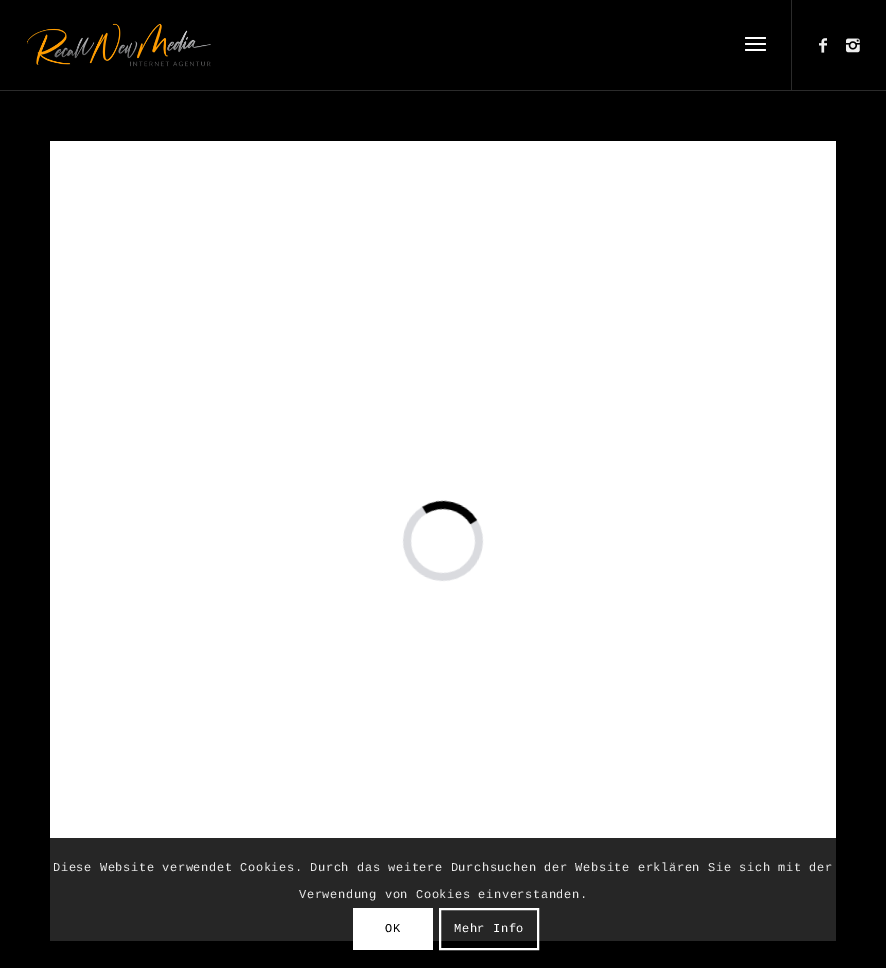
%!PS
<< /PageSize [886 968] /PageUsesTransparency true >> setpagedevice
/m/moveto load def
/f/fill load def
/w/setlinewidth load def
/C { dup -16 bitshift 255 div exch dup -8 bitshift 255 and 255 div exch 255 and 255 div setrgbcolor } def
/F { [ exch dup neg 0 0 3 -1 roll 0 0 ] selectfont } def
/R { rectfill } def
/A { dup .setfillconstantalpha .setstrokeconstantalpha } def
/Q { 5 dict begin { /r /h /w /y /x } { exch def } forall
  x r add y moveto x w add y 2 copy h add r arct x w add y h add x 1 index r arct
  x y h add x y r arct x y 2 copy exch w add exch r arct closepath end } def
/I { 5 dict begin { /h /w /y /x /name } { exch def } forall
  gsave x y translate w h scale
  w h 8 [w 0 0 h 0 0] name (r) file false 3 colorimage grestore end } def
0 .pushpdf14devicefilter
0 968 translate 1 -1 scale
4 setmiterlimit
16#000000 C
0 0 886 968 R
16#2B2B2B C
0 90 886 1 R
(1.rgb) 27 23 184 44 I
791 0 1 90 R
16#FFFFFF C
745 43 21 2 1 Q f
745 37 21 2 1 Q f
745 49 21 2 1 Q f
(2.rgb) 819 38 8 15 I
(3.rgb) 846 38 14 15 I
(4.rgb) 50 141 786 800 I
0.85 A
16#000000 C
50 838 786 103 R
/LiberationMono-Regular 12 F
1 A
16#E9E9E9 C
53 871 m .6 0 (Diese Website verwendet Cookies. Durch das weitere Durchsuchen der Website erklären Sie sich mit der) ashow
299 898 m .6 0 (Verwendung von Cookies einverstanden.) ashow
16#FFFFFF C
353 908 80 42 R
16#000000 C
385 932 m .6 0 (OK) ashow
16#FFFFFF C
2 w
440 909 98 40 rectstroke
454 932 m .6 0 (Mehr Info) ashow
.poppdf14devicefilter showpage
